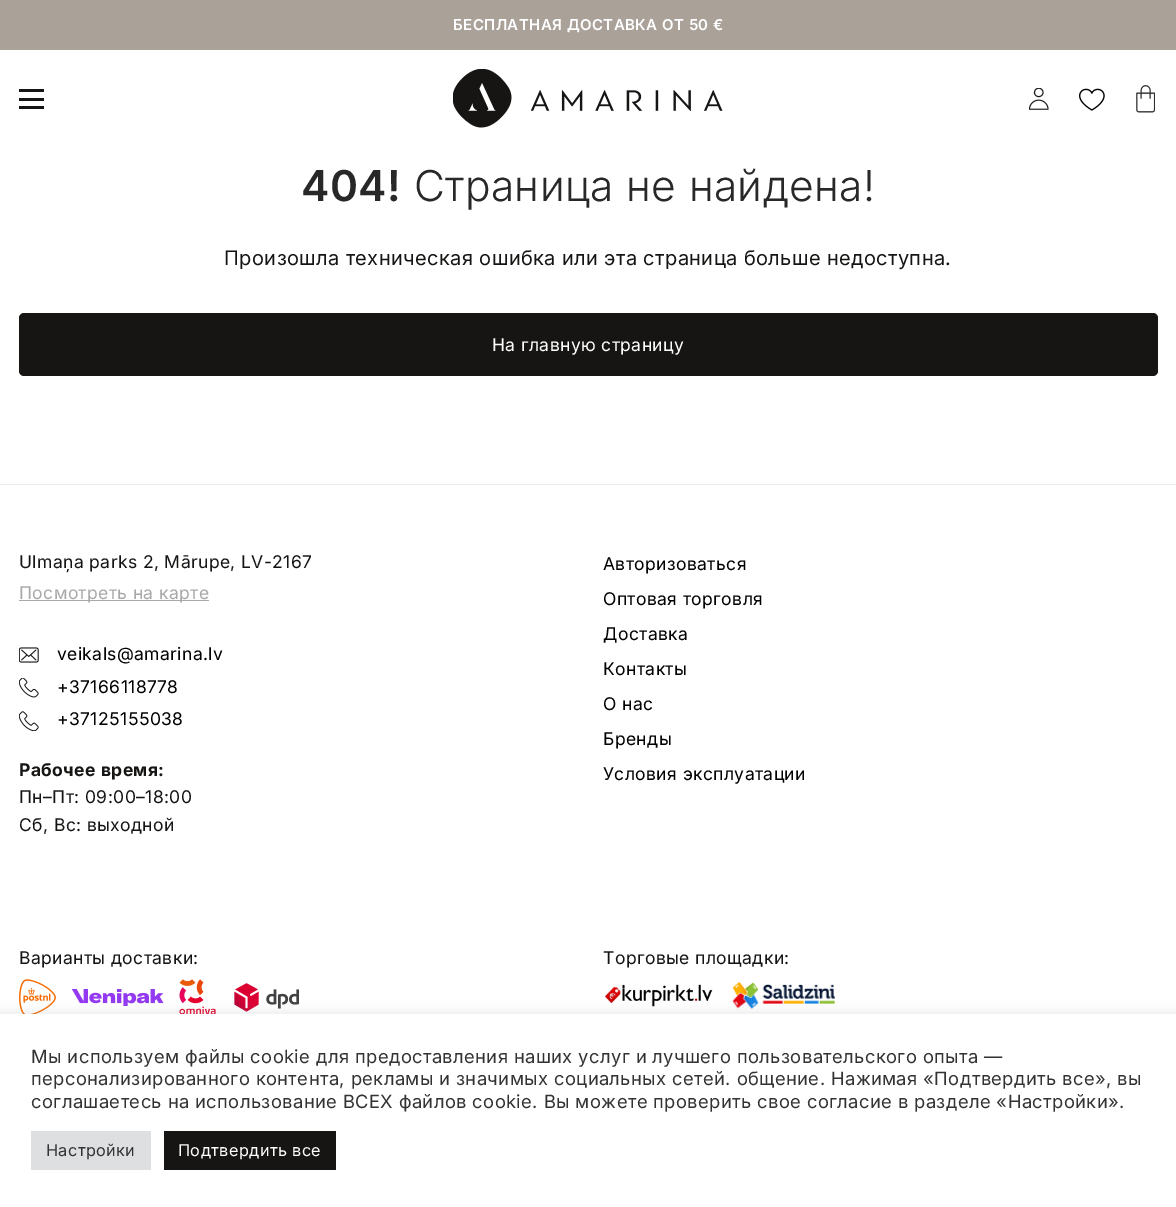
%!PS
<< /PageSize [1176 1207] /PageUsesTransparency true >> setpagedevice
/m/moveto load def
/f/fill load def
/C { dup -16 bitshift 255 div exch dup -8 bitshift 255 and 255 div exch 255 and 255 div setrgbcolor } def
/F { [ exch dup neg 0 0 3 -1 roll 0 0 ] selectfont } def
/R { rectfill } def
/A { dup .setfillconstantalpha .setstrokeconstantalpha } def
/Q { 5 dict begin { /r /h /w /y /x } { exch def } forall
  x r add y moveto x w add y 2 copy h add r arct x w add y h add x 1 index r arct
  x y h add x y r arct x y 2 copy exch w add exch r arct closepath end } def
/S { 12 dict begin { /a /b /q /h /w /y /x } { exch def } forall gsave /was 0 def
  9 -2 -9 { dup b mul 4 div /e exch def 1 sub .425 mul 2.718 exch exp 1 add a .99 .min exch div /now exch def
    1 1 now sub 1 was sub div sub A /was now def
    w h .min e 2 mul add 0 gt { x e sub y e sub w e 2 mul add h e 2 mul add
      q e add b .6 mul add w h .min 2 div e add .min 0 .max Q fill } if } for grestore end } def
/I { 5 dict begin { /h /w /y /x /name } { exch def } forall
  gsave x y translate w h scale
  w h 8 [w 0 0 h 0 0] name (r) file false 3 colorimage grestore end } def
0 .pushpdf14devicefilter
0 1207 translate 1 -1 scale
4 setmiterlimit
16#FFFFFF C
0 0 1176 1207 R
16#AAA199 C
0 0 1176 50 R
/Inter-SemiBold 15 F
16#FFFFFF C
453 30 m .45 0 (БЕСПЛАТНАЯ ДОСТАВКА ОТ 50 €) ashow
16#161514 C
19 98 25 3 R
19 89 25 3 R
19 106 25 3 R
(1.rgb) 453 69 270 59 I
(2.rgb) 1029 88 20 22 I
(3.rgb) 1079 88 26 23 I
(4.rgb) 1136 85 19 28 I
/Inter-SemiBold 42.5 F
16#282828 C
301 201 m .4 0 (404!) ashow
/Inter-Light 42.5 F
414 201 m .4 0 (Страница не найдена!) ashow
/Inter-Regular 20 F
16#161514 C
224 265 m .4 0 (Произошла техническая ошибка или эта страница больше недоступна.) ashow
19 313 1139 63 5 Q f
/Inter-Regular 17.5 F
16#FFFFFF C
492 351 m .4 0 (На главную страницу) ashow
16#EAE9E7 C
0 484 1176 1 R
16#161514 C
19 568 m .4 0 (Ulmaņa parks 2, Mārupe, LV-2167) ashow
16#A9A9A9 C
19 600 190 1 R
19 599 m .4 0 (Посмотреть на карте) ashow
(5.rgb) 19 647 20 16 I
16#000000 C
57 660 m .4 0 (veikals@amarina.lv) ashow
(6.rgb) 19 678 20 20 I
57 693 m .4 0 (+37166118778) ashow
(7.rgb) 19 711 20 20 I
57 725 m .4 0 (+37125155038) ashow
/Inter-Bold 17.5 F
16#161514 C
19 776 m .4 0 (Рабочее время:) ashow
/Inter-Regular 17.5 F
19 803 m .4 0 (Пн–Пт: 09:00–18:00) ashow
19 831 m .4 0 (Сб, Вс: выходной) ashow
16#000000 C
603 570 m .4 0 (Авторизоваться) ashow
603 605 m .4 0 (Оптовая торговля) ashow
603 640 m .4 0 (Доставка) ashow
603 675 m .4 0 (Контакты) ashow
603 710 m .4 0 (О нас) ashow
603 745 m .4 0 (Бренды) ashow
603 780 m .4 0 (Условия эксплуатации) ashow
16#161514 C
19 964 m .4 0 (Варианты доставки:) ashow
(8.rgb) 19 979 37 35 I
(9.rgb) 71 989 93 17 I
(10.rgb) 179 979 37 35 I
(11.rgb) 234 983 65 29 I
603 964 m .4 0 (Торговые площадки:) ashow
(12.rgb) 605 984 108 23 I
(13.rgb) 732 982 103 27 I
16#ACABAB C
0 1013 1176 193 0 6 .3 S
16#FFFFFF C
0 1014 1176 193 R
/Inter-Regular 18.33 F
16#333333 C
31 1063 m .4 0 (Мы используем файлы cookie для предоставления наших услуг и лучшего пользовательского опыта —) ashow
31 1085 m .4 0 (персонализированного контента, рекламы и значимых социальных сетей. общение. Нажимая «Подтвердить все», вы) ashow
31 1108 m .4 0 (соглашаетесь на использование ВСЕХ файлов cookie. Вы можете проверить свое согласие в разделе «Настройки».) ashow
16#DEDFE0 C
31 1131 120 39 R
/Inter-Regular 16.25 F
16#333333 C
46 1156 m .4 0 (Настройки) ashow
16#161514 C
164 1131 172 39 R
16#FFFFFF C
178 1156 m .4 0 (Подтвердить все) ashow
.poppdf14devicefilter showpage
